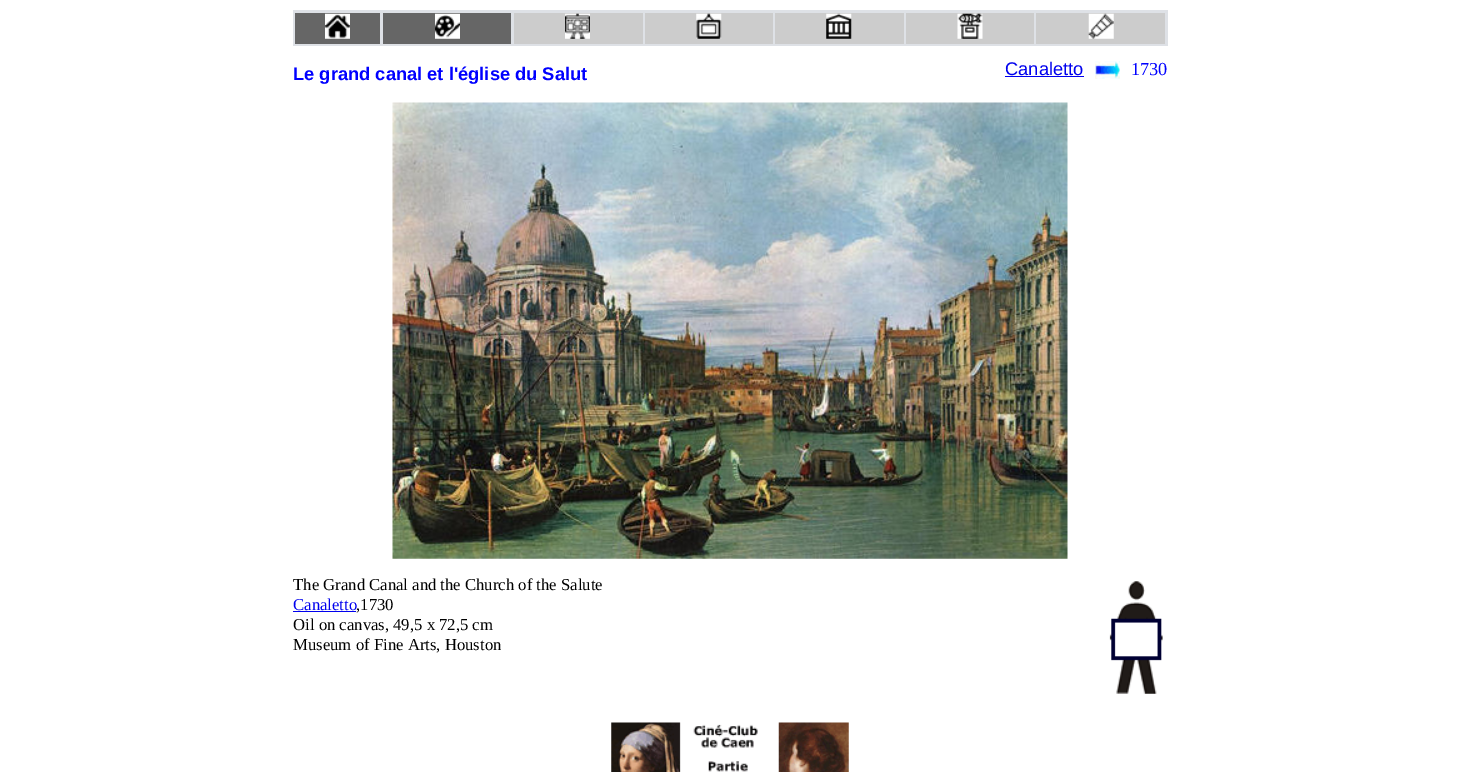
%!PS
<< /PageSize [1460 772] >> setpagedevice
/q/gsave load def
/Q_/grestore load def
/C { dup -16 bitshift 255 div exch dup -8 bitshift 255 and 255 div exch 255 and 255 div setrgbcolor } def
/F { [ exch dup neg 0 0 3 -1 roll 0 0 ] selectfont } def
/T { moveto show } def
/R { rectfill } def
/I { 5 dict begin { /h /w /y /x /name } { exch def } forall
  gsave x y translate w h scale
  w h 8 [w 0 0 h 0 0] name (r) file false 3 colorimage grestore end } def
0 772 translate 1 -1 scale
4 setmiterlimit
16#FFFFFF C
0 0 1460 772 R
16#DEE1E6 C
293 10 875 36 R
16#666666 C
295 13 85 31 R
(1.rgb) 325 13 25 26 I
383 13 128 31 R
(2.rgb) 435 13 25 26 I
16#CCCCCC C
514 13 129 31 R
(3.rgb) 565 13 25 26 I
645 13 128 31 R
(4.rgb) 696 13 26 26 I
775 13 129 31 R
(5.rgb) 826 13 26 26 I
906 13 128 31 R
(6.rgb) 957 13 26 26 I
1036 13 129 31 R
(7.rgb) 1088 13 26 26 I
/LiberationSans-Bold 18.3 F
16#0000FF C
(Le grand canal et l'église du Salut) 293 80 T
/LiberationSans-Regular 18.3 F
16#0000EE C
(Canaletto) 1005 75 T
1005 76 79 1 R
(8.rgb) 1095 61 25 18 I
/LiberationSerif-Regular 18.3 F
16#0000FF C
(1730) 1131 75 T
(9.rgb) 392 102 676 457 I
q
293 575 437 80 rectclip
/LiberationSerif-Regular 16.7 F
16#000000 C
(The Grand Canal and the Church of the Salute) 293 590 T
Q_
/LiberationSerif-Regular 16.7 F
16#0000EE C
(Canaletto) 293 610 T
293 611 63 1 R
16#000000 C
(,1730) 356 610 T
(Oil on canvas, 49,5 x 72,5 cm) 293 630 T
(Museum of Fine Arts, Houston) 293 650 T
(10.rgb) 1109 581 54 113 I
(11.rgb) 611 722 238 50 I
showpage
